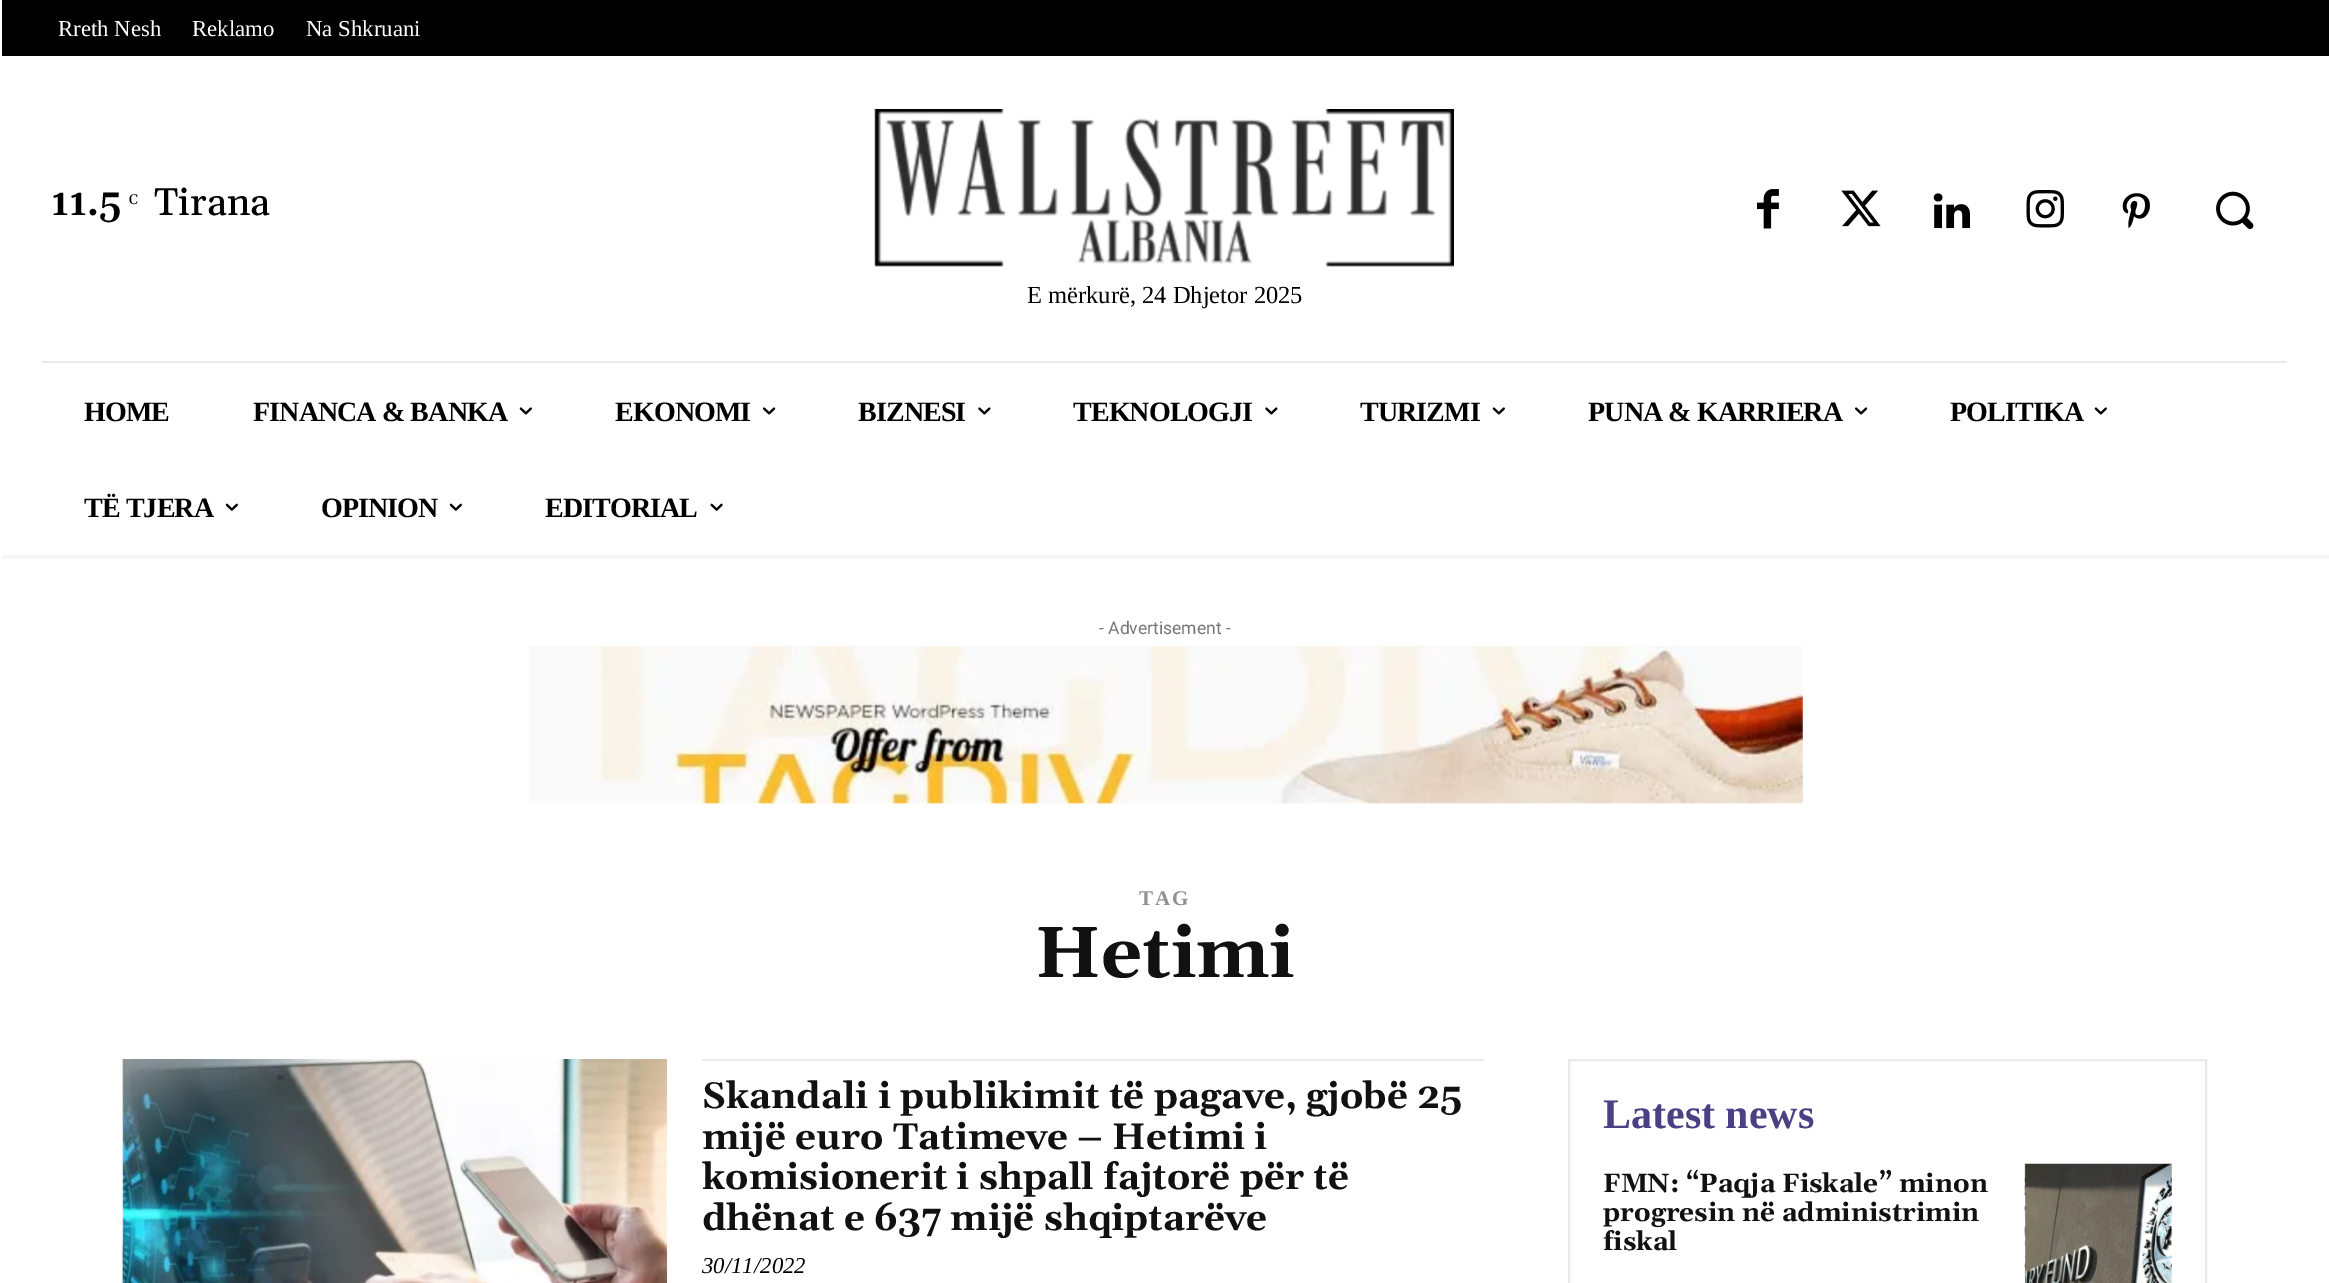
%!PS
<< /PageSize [2329 1283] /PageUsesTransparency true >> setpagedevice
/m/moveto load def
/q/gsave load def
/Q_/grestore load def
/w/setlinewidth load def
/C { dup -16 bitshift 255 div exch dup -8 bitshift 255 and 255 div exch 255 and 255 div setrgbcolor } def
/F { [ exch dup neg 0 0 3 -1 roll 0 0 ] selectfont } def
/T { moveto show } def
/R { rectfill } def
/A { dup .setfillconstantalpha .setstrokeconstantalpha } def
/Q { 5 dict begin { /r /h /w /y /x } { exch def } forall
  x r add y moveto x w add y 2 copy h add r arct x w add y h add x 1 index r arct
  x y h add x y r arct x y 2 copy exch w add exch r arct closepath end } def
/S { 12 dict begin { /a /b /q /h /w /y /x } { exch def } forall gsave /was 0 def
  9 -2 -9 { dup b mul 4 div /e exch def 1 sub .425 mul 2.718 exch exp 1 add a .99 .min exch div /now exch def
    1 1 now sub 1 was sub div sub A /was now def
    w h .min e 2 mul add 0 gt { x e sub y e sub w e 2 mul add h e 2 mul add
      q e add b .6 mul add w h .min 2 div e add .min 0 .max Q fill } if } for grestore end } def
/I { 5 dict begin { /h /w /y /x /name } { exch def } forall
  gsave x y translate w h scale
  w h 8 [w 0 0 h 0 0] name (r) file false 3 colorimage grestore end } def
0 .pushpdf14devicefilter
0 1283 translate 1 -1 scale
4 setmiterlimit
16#FFFFFF C
0 0 2329 1283 R
16#000000 C
2 0 2327 56 R
/LiberationSerif-Regular 22.75 F
16#FFFFFF C
(Rreth Nesh) 58 36 T
(Reklamo) 192 36 T
(Na Shkruani) 306 36 T
/Gelasio-SemiBold 38.5 F
16#000000 C
(11.5) 51 215 T
/Gelasio-Regular 14 F
(C) 129 204 T
/Gelasio-Medium 38.5 F
(Tirana) 154 215 T
(1.rgb) 1757 189 22 40 I
(2.rgb) 1841 190 40 37 I
(3.rgb) 1933 193 37 36 I
(4.rgb) 2026 190 38 38 I
(5.rgb) 2122 193 28 36 I
(6.rgb) 2216 191 38 38 I
(7.rgb) 874 109 580 158 I
/LiberationSerif-Regular 24.5 F
(E mërkurë, 24 Dhjetor 2025) 1027 303 T
16#EAEAEA C
42 361 2245 2 R
q
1 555 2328 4 rectclip
16#000000 C
2 312 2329 246 0 3.5 .06 S
Q_
/LiberationSerif-Bold 28 F
16#000000 C
84 421 m -.9 0 (HOME) ashow
253 421 m -.9 0 (FINANCA & BANKA) ashow
(8.rgb) 519 407 13 8 I
615 421 m -.9 0 (EKONOMI) ashow
(9.rgb) 763 407 13 8 I
858 421 m -.9 0 (BIZNESI) ashow
(10.rgb) 978 407 13 8 I
1073 421 m -.9 0 (TEKNOLOGJI) ashow
(10.rgb) 1265 407 13 8 I
1360 421 m -.9 0 (TURIZMI) ashow
(8.rgb) 1492 407 13 8 I
1588 421 m -.9 0 (PUNA & KARRIERA) ashow
(9.rgb) 1855 407 13 8 I
1950 421 m -.9 0 (POLITIKA) ashow
(8.rgb) 2094 407 13 8 I
84 517 m -.9 0 (TË TJERA) ashow
(11.rgb) 225 503 13 8 I
321 517 m -.9 0 (OPINION) ashow
(11.rgb) 449 503 13 8 I
545 517 m -.9 0 (EDITORIAL) ashow
(12.rgb) 710 503 13 8 I
/Roboto-Regular 17.5 F
16#767676 C
(- Advertisement -) 1099 634 T
(13.rgb) 529 646 1274 158 I
/LiberationSerif-Bold 21 F
16#919191 C
1139 905 m 2 0 (TAG) ashow
/Gelasio-Bold 72 F
16#111111 C
(Hetimi) 1035 977 T
(14.rgb) 121 1059 546 224 I
16#EAEAEA C
702 1059 782 2 R
/Gelasio-Bold 36.75 F
16#111111 C
(Skandali i publikimit të pagave, gjobë 25) 702 1108 T
(mijë euro Tatimeve – Hetimi i) 702 1149 T
(komisionerit i shpall fajtorë për të) 702 1189 T
(dhënat e 637 mijë shqiptarëve) 702 1230 T
/LiberationSerif-Italic 22.75 F
16#000000 C
(30/11/2022) 702 1273 T
16#EAEAEA C
2 w
1569 1060 637 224 rectstroke
/LiberationSerif-Bold 42 F
16#4C4084 C
(Latest news) 1603 1128 T
/Gelasio-Bold 26.25 F
16#111111 C
(FMN: “Paqja Fiskale” minon) 1603 1192 T
(progresin në administrimin) 1603 1221 T
(fiskal) 1603 1250 T
(15.rgb) 2024 1163 148 120 I
.poppdf14devicefilter showpage
